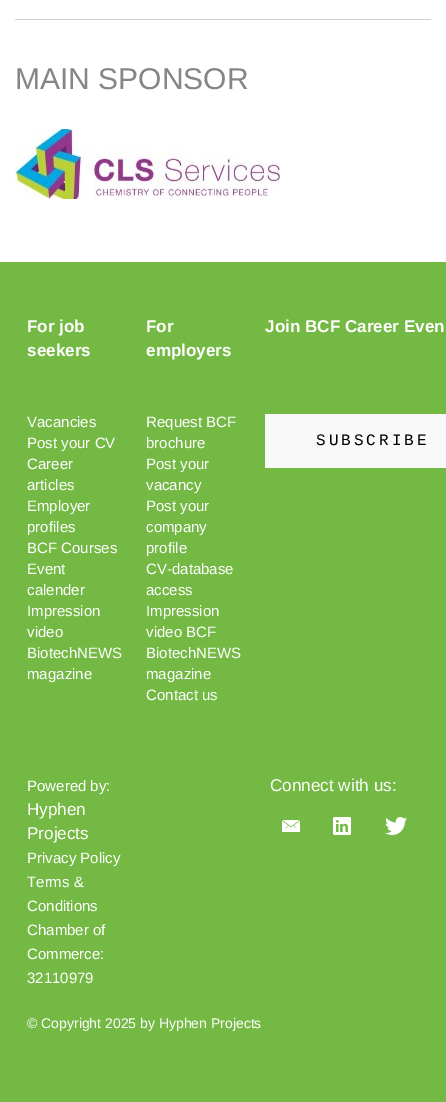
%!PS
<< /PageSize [446 1102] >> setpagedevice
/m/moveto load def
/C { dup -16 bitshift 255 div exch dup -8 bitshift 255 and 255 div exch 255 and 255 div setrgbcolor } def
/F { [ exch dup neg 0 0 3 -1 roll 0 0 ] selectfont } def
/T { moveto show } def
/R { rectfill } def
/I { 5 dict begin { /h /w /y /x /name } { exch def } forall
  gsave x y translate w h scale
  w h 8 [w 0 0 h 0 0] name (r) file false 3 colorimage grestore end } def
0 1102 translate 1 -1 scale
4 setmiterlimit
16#FFFFFF C
0 0 446 1102 R
16#D1D1D1 C
15 19 416 1 R
/LiberationSans-Regular 30 F
16#858585 C
(MAIN SPONSOR) 15 89 T
(1.rgb) 15 129 265 70 I
16#74B944 C
0 262 446 840 R
/LiberationSans-Bold 17.1 F
16#FFFFFF C
(For job) 27 332 T
(seekers) 27 356 T
(For) 146 332 T
(employers) 146 356 T
(Join BCF Career Even) 265 332 T
/LiberationSans-Regular 15 F
(Vacancies) 27 427 T
(Post your CV) 27 448 T
(Career) 27 469 T
(articles) 27 490 T
(Employer) 27 511 T
(profiles) 27 532 T
(BCF Courses) 27 553 T
(Event) 27 574 T
(calender) 27 595 T
(Impression) 27 616 T
(video) 27 637 T
(BiotechNEWS) 27 658 T
(magazine) 27 679 T
(Request BCF) 146 427 T
(brochure) 146 448 T
(Post your) 146 469 T
(vacancy) 146 490 T
(Post your) 146 511 T
(company) 146 532 T
(profile) 146 553 T
(CV-database) 146 574 T
(access) 146 595 T
(Impression) 146 616 T
(video BCF) 146 637 T
(BiotechNEWS) 146 658 T
(magazine) 146 679 T
(Contact us) 146 700 T
16#F9F9F9 C
265 414 181 54 R
/LiberationMono-Regular 16 F
16#000000 C
316 445 m 3 0 (SUBSCRIBE) ashow
/LiberationSans-Regular 15 F
16#FFFFFF C
(Powered by:) 27 791 T
/LiberationSans-Regular 17.1 F
(Hyphen) 27 815 T
(Projects) 27 839 T
/LiberationSans-Regular 15 F
(Privacy Policy) 27 863 T
(Terms &) 27 887 T
(Conditions) 27 911 T
(Chamber of) 27 935 T
(Commerce:) 27 959 T
(32110979) 27 983 T
/LiberationSans-Regular 17.1 F
(Connect with us:) 270 791 T
(2.rgb) 282 820 18 12 I
(3.rgb) 333 817 18 18 I
(4.rgb) 385 817 22 18 I
/LiberationSans-Regular 14 F
(© Copyright 2025 by Hyphen Projects) 27 1028 T
showpage
